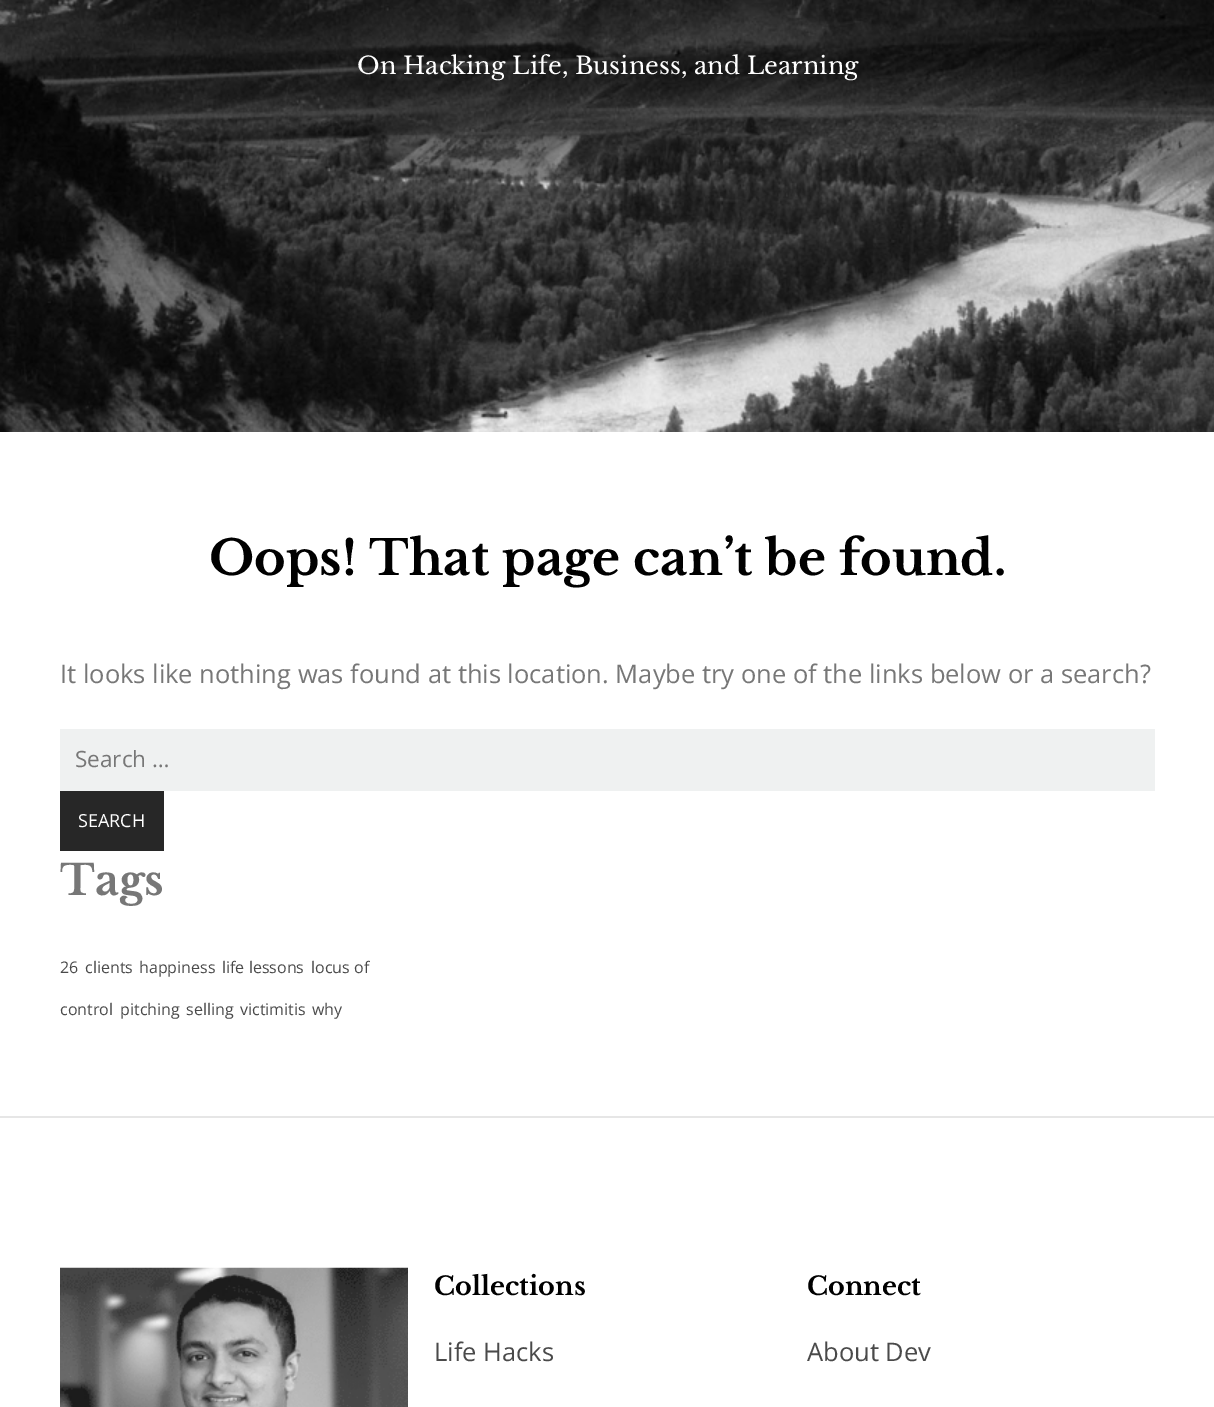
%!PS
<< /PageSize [1214 1407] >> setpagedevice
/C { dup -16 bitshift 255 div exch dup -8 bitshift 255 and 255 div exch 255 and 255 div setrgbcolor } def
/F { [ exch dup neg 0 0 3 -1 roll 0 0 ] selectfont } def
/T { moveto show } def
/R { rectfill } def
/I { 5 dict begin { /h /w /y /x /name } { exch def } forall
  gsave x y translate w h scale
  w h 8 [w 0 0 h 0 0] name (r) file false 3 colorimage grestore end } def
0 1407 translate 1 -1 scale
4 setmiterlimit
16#FFFFFF C
0 0 1214 1407 R
(1.rgb) 0 0 1214 432 I
/LibreBaskerville-Regular 24 F
(On Hacking Life, Business, and Learning) 357 74 T
/LibreBaskerville-Bold 48 F
16#000000 C
(Oops! That page can’t be found.) 209 575 T
/OpenSans-Regular 25.5 F
16#777777 C
(It looks like nothing was found at this location. Maybe try one of the links below or a search?) 60 683 T
16#EFF1F1 C
60 729 1095 62 R
/OpenSans-Regular 22.5 F
16#777777 C
(Search …) 75 767 T
16#272727 C
60 791 104 60 R
/OpenSans-Regular 18 F
16#FFFFFF C
(SEARCH) 78 827 T
/LibreBaskerville-Bold 42 F
16#777777 C
(Tags) 60 895 T
/OpenSans-Regular 16 F
16#4A4A4A C
(26) 60 973 T
(clients) 85 973 T
(happiness) 139 973 T
(life lessons) 222 973 T
(locus of) 311 973 T
(control) 60 1015 T
(pitching) 120 1015 T
(selling) 186 1015 T
(victimitis) 240 1015 T
(why) 312 1015 T
16#E6E6E6 C
0 1116 1214 2 R
(2.rgb) 60 1267 348 140 I
/LibreBaskerville-Bold 25.5 F
16#000000 C
(Collections) 434 1295 T
/OpenSans-Regular 25.5 F
16#4A4A4A C
(Life Hacks) 434 1361 T
/LibreBaskerville-Bold 25.5 F
16#000000 C
(Connect) 807 1295 T
/OpenSans-Regular 25.5 F
16#4A4A4A C
(About Dev) 807 1361 T
showpage
